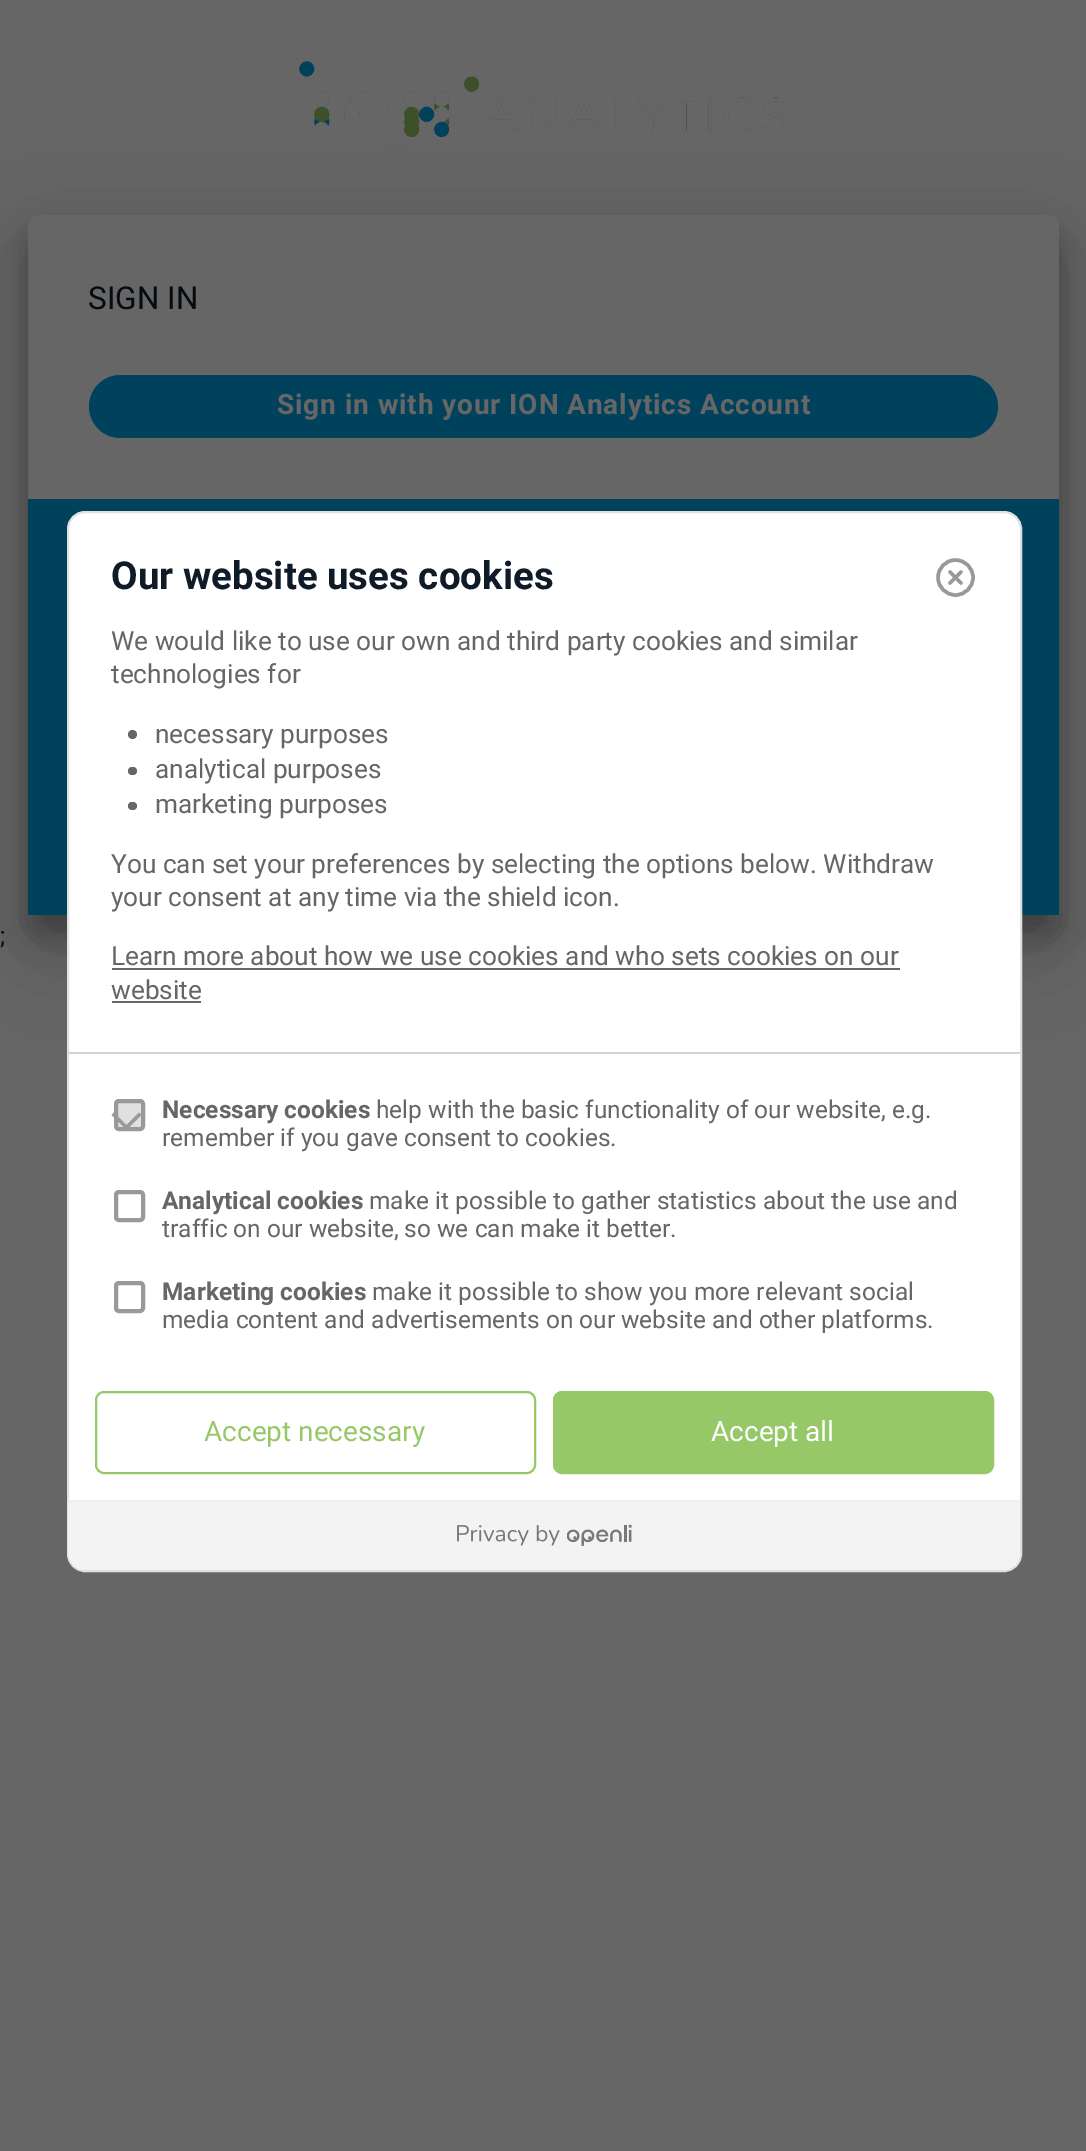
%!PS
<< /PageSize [1086 2151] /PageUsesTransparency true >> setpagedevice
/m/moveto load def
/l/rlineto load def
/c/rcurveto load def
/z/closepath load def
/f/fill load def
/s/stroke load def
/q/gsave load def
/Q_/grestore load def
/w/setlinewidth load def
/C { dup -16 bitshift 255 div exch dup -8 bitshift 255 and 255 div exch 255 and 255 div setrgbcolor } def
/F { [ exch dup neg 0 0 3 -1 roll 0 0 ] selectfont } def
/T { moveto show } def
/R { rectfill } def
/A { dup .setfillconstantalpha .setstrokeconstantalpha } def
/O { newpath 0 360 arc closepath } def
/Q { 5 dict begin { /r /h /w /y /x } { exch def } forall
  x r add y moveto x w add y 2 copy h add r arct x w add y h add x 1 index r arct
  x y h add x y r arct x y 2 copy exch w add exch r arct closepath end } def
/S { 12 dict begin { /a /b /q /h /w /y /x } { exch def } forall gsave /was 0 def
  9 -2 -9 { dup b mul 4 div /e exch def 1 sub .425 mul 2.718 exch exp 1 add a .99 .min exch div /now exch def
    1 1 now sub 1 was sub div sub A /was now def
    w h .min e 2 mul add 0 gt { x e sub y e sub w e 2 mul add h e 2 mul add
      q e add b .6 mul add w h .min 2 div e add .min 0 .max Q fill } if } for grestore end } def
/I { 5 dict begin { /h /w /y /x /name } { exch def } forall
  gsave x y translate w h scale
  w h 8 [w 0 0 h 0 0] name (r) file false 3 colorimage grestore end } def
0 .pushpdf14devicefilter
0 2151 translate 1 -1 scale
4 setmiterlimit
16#666666 C
0 0 1086 2151 R
(1.rgb) 299 61 489 93 I
16#000000 C
28 245 1031 700 11 44 .19 S
28 236 1031 700 11 13 .24 S
16#666666 C
28 215 1031 700 11 Q f
/Roboto-Regular 31.5 F
16#060B10 C
(SIGN IN) 88 309 T
16#00425C C
89 375 909 63 31.5 Q f
/Roboto-Bold 28 F
16#666666 C
277 414 m .9 0 (Sign in with your ION Analytics Account) ashow
16#00425C C
28 499 1031 416 R
/Roboto-Regular 24.5 F
16#060B10 C
(;) 0 944 T
16#FFFFFF C
68 512 953 1059 17 Q q f Q_
16#E1E1E1 C
2 w
s
16#D3D3D3 C
68 1052 952 2 R
/Roboto-Bold 38.5 F
16#101B29 C
(Our website uses cookies) 111 589 T
16#999999 C
3.5 w
955.5 577.5 17.5 O s
1 setlinecap
1 setlinejoin
961 572 m -11 11 l 950 572 m 11 11 l s
/Roboto-Regular 26.25 F
16#666666 C
(We would like to use our own and third party cookies and similar) 111 650 T
(technologies for) 111 683 T
132.5 734.5 4.5 O f
(necessary purposes) 155 743 T
128 767 9 8 4 Q f
(analytical purposes) 155 778 T
128 802 9 8 4 Q f
(marketing purposes) 155 813 T
(You can set your preferences by selecting the options below. Withdraw) 111 873 T
(your consent at any time via the shield icon.) 111 906 T
(Learn more about how we use cookies and who sets cookies on our) 111 965 T
112 968 788 2 R
(website) 111 999 T
112 1001 89 2 R
16#E0E0E0 C
116 1101 27 28 3 Q q f Q_
16#999999 C
4 w
0 setlinecap
0 setlinejoin
s
139 1112.5 m 2.5 2.5 l -15 15 l -2.5 -2.5 l z f
114 1112.5 m 15 15 l -2.5 2.5 l -15 -15 l z f
/Roboto-Bold 24.5 F
16#666666 C
(Necessary cookies) 162 1118 T
/Roboto-Regular 24.5 F
(help with the basic functionality of our website, e.g.) 376 1118 T
(remember if you gave consent to cookies.) 162 1146 T
16#999999 C
116 1192 27 28 3 Q s
/Roboto-Bold 24.5 F
16#666666 C
(Analytical cookies) 162 1209 T
/Roboto-Regular 24.5 F
(make it possible to gather statistics about the use and) 369 1209 T
(traffic on our website, so we can make it better.) 162 1237 T
16#999999 C
116 1283 27 28 3 Q s
/Roboto-Bold 24.5 F
16#666666 C
(Marketing cookies) 162 1300 T
/Roboto-Regular 24.5 F
(make it possible to show you more relevant social) 372 1300 T
(media content and advertisements on our website and other platforms.) 162 1328 T
16#96C868 C
2 w
96 1392 439 81 8 Q s
/Roboto-Regular 28 F
(Accept necessary) 204 1441 T
554 1392 439 81 8 Q q f Q_
s
16#FFFFFF C
(Accept all) 711 1441 T
16#F3F3F3 C
68 1500 m 952 0 l 0 52 l 0 10 -8 18 -18 18 c -916 0 l -10 0 -18 -8 -18 -18 c z f
16#EEEEEE C
68 1500 952 2 R
(2.rgb) 457 1524 175 22 I
.poppdf14devicefilter showpage
